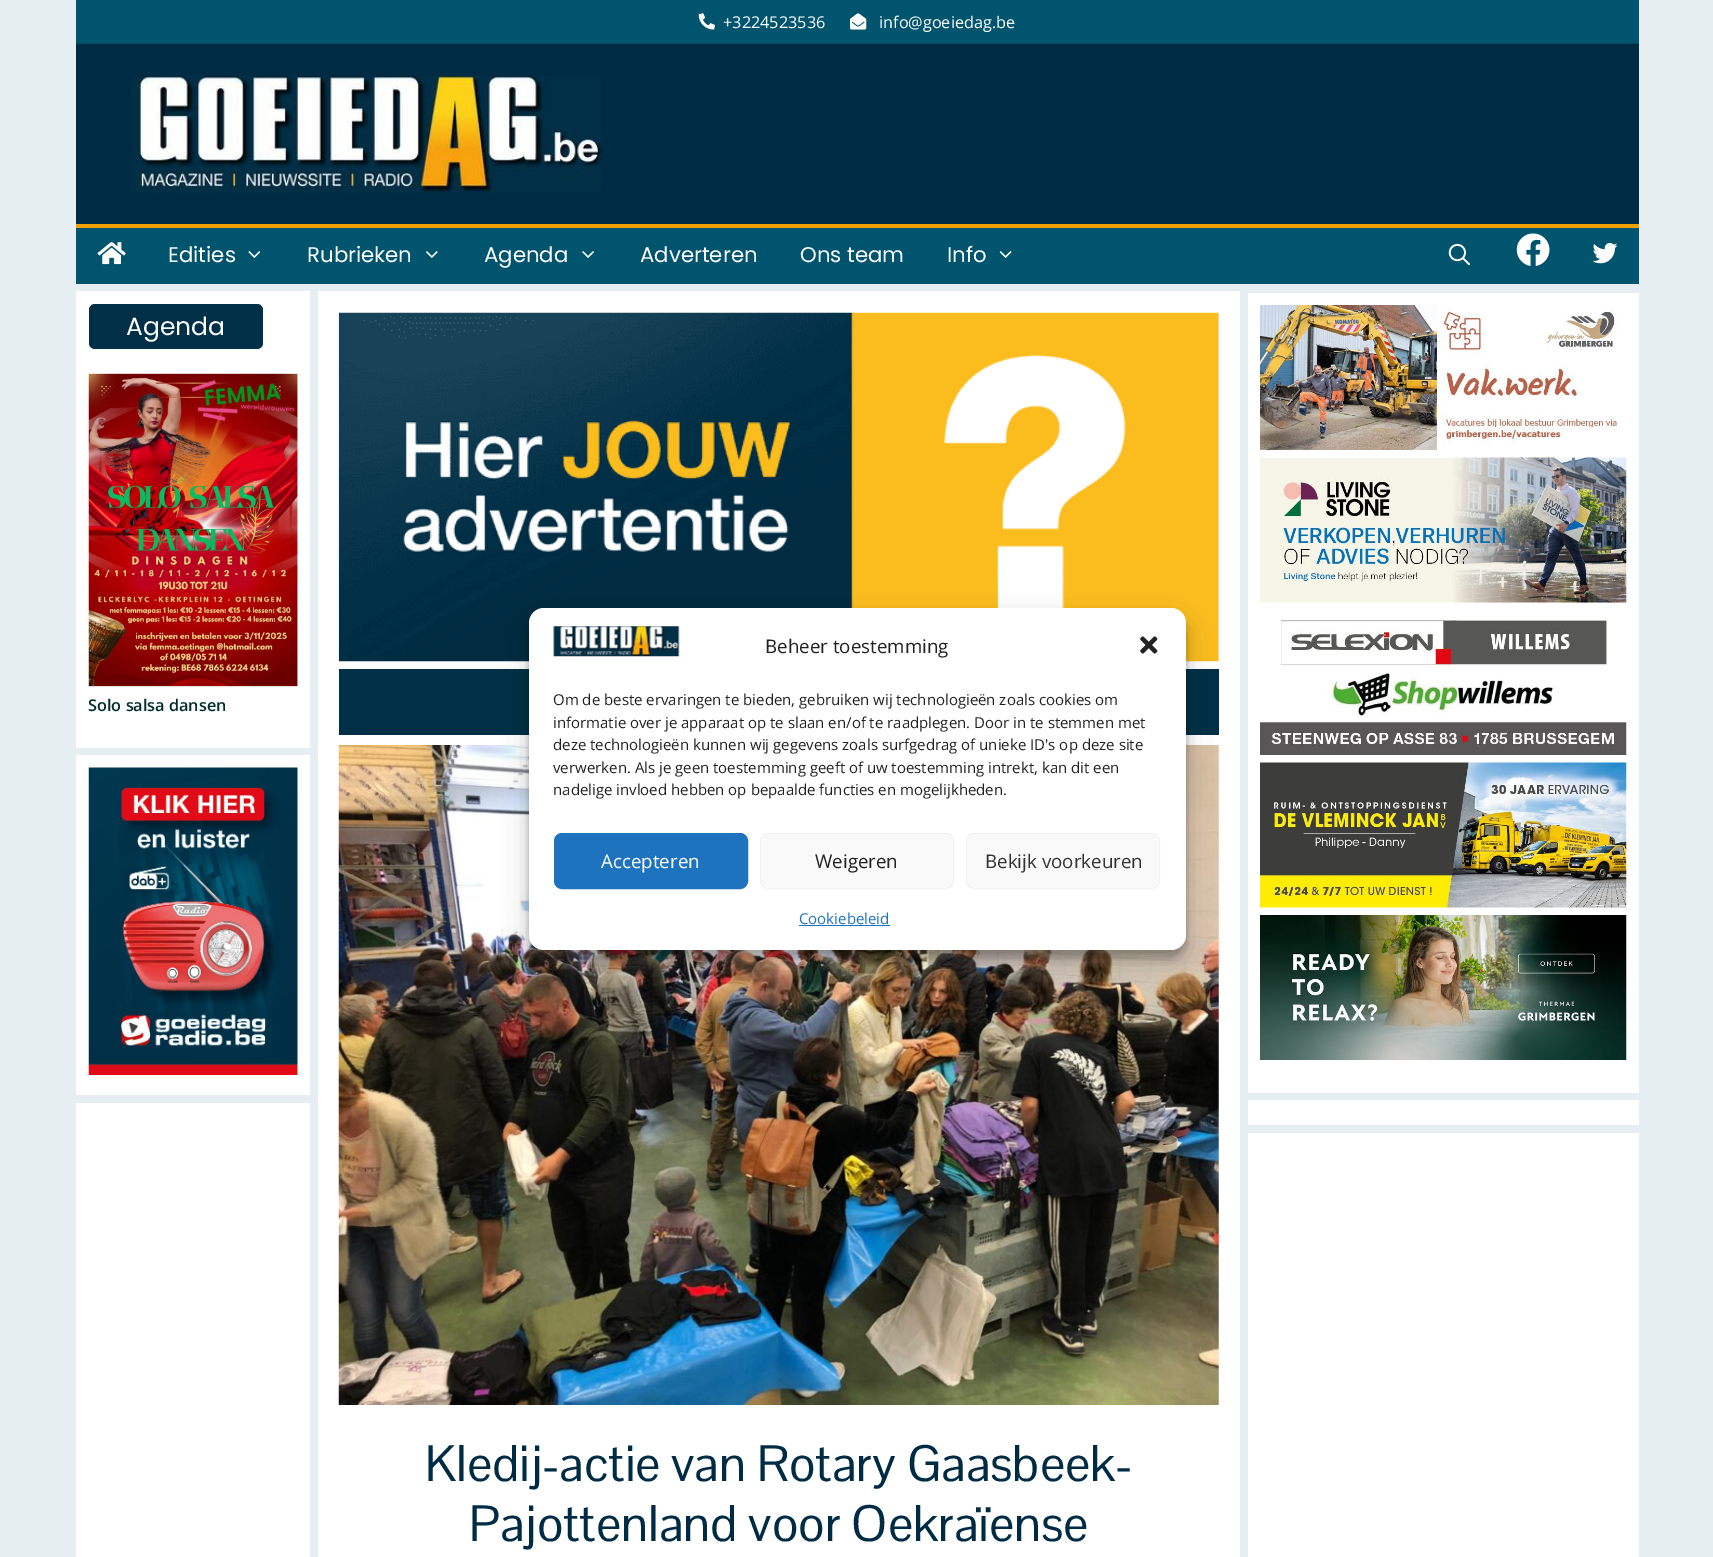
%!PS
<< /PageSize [1713 1557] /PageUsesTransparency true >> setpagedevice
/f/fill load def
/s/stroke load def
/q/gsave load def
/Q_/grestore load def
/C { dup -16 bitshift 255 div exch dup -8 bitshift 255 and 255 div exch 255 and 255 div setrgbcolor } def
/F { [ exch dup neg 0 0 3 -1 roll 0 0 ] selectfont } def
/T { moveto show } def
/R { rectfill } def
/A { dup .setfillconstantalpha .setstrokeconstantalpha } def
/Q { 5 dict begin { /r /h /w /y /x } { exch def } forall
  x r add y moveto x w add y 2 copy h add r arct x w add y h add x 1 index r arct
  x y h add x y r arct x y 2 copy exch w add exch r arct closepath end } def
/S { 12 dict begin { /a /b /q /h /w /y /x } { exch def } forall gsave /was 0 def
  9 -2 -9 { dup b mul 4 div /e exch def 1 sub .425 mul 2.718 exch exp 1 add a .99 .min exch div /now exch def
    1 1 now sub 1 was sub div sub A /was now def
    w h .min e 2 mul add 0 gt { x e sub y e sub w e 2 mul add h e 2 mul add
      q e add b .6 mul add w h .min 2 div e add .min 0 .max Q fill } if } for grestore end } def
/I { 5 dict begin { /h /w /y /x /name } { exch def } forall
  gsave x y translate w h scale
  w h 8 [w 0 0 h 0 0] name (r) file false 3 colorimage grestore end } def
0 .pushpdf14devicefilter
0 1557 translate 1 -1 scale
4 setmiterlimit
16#E6EEF1 C
0 0 1713 1557 R
16#00546E C
76 0 1563 44 R
(1.rgb) 698 13 17 17 I
/OpenSans-Regular 16.25 F
16#FFFFFF C
(+3224523536) 723 28 T
(2.rgb) 850 13 17 17 I
(info@goeiedag.be) 879 28 T
16#002B44 C
76 44 1563 180 R
(3.rgb) 76 43 1563 1 I
16#F0A201 C
76 224 1563 4 R
(4.rgb) 131 76 471 117 I
16#00546E C
76 228 1563 56 R
(5.rgb) 97 242 29 23 I
/Poppins-Regular 21.25 F
16#FFFFFF C
(Edities) 168 262 T
(6.rgb) 248 251 13 7 I
(Rubrieken) 307 262 T
(7.rgb) 426 251 12 7 I
(Agenda) 484 262 T
(8.rgb) 582 251 12 7 I
(Adverteren) 640 262 T
(Ons team) 800 262 T
(Info) 947 262 T
(9.rgb) 999 251 13 7 I
(10.rgb) 1448 243 22 23 I
(11.rgb) 1516 233 34 33 I
(12.rgb) 1592 243 26 21 I
76 291 234 457 R
16#003047 C
89 304 174 45 6 Q f
/Poppins-Regular 25 F
16#FFFFFF C
(Agenda) 126 335 T
(13.rgb) 88 373 210 314 I
/OpenSans-SemiBold 16.25 F
16#002C2D C
(Solo salsa dansen) 88 711 T
16#FFFFFF C
76 755 234 340 R
(14.rgb) 88 767 210 308 I
76 1103 234 454 R
1248 293 391 800 R
(15.rgb) 1260 305 358 145 I
(16.rgb) 1260 457 367 146 I
(17.rgb) 1260 618 367 137 I
(18.rgb) 1260 762 367 146 I
(19.rgb) 1260 915 367 145 I
1248 1100 391 25 R
1248 1133 391 424 R
318 291 922 1266 R
(20.rgb) 338 312 881 350 I
16#003047 C
339 669 880 66 R
(21.rgb) 338 745 881 660 I
/PontanoSans-Regular 50 F
16#002B44 C
(Kledij-actie van Rotary Gaasbeek-) 425 1481 T
(Pajottenland voor Oekraïense) 469 1541 T
16#000000 C
529 615 657 343 15 4 .23 S
529 620 657 343 15 12.5 .19 S
16#FFFFFF C
529 608 657 342 15 Q f
(22.rgb) 553 626 127 31 I
/OpenSans-Regular 18.75 F
16#222222 C
(Beheer toestemming) 765 653 T
(23.rgb) 1140 636 18 18 I
/OpenSans-Regular 15 F
(Om de beste ervaringen te bieden, gebruiken wij technologieën zoals cookies om) 553 705 T
(informatie over je apparaat op te slaan en/of te raadplegen. Door in te stemmen met) 553 728 T
(deze technologieën kunnen wij gegevens zoals surfgedrag of unieke ID's op deze site) 553 750 T
(verwerken. Als je geen toestemming geeft of uw toestemming intrekt, kan dit een) 553 773 T
(nadelige invloed hebben op bepaalde functies en mogelijkheden.) 553 795 T
16#1E73BE C
554.5 833.5 193 55 7.5 Q q f Q_
s
/OpenSans-Regular 18.75 F
16#FFFFFF C
(Accepteren) 601 868 T
16#F9F9F9 C
760.5 833.5 193 55 7.5 Q q f Q_
16#F2F2F2 C
s
16#222222 C
(Weigeren) 815 868 T
16#F9F9F9 C
966.5 833.5 193 55 7.5 Q q f Q_
16#F2F2F2 C
s
16#333333 C
(Bekijk voorkeuren) 985 868 T
/OpenSans-Regular 15 F
16#1E73BE C
(Cookiebeleid) 799 924 T
799 925 91 1 R
.poppdf14devicefilter showpage
